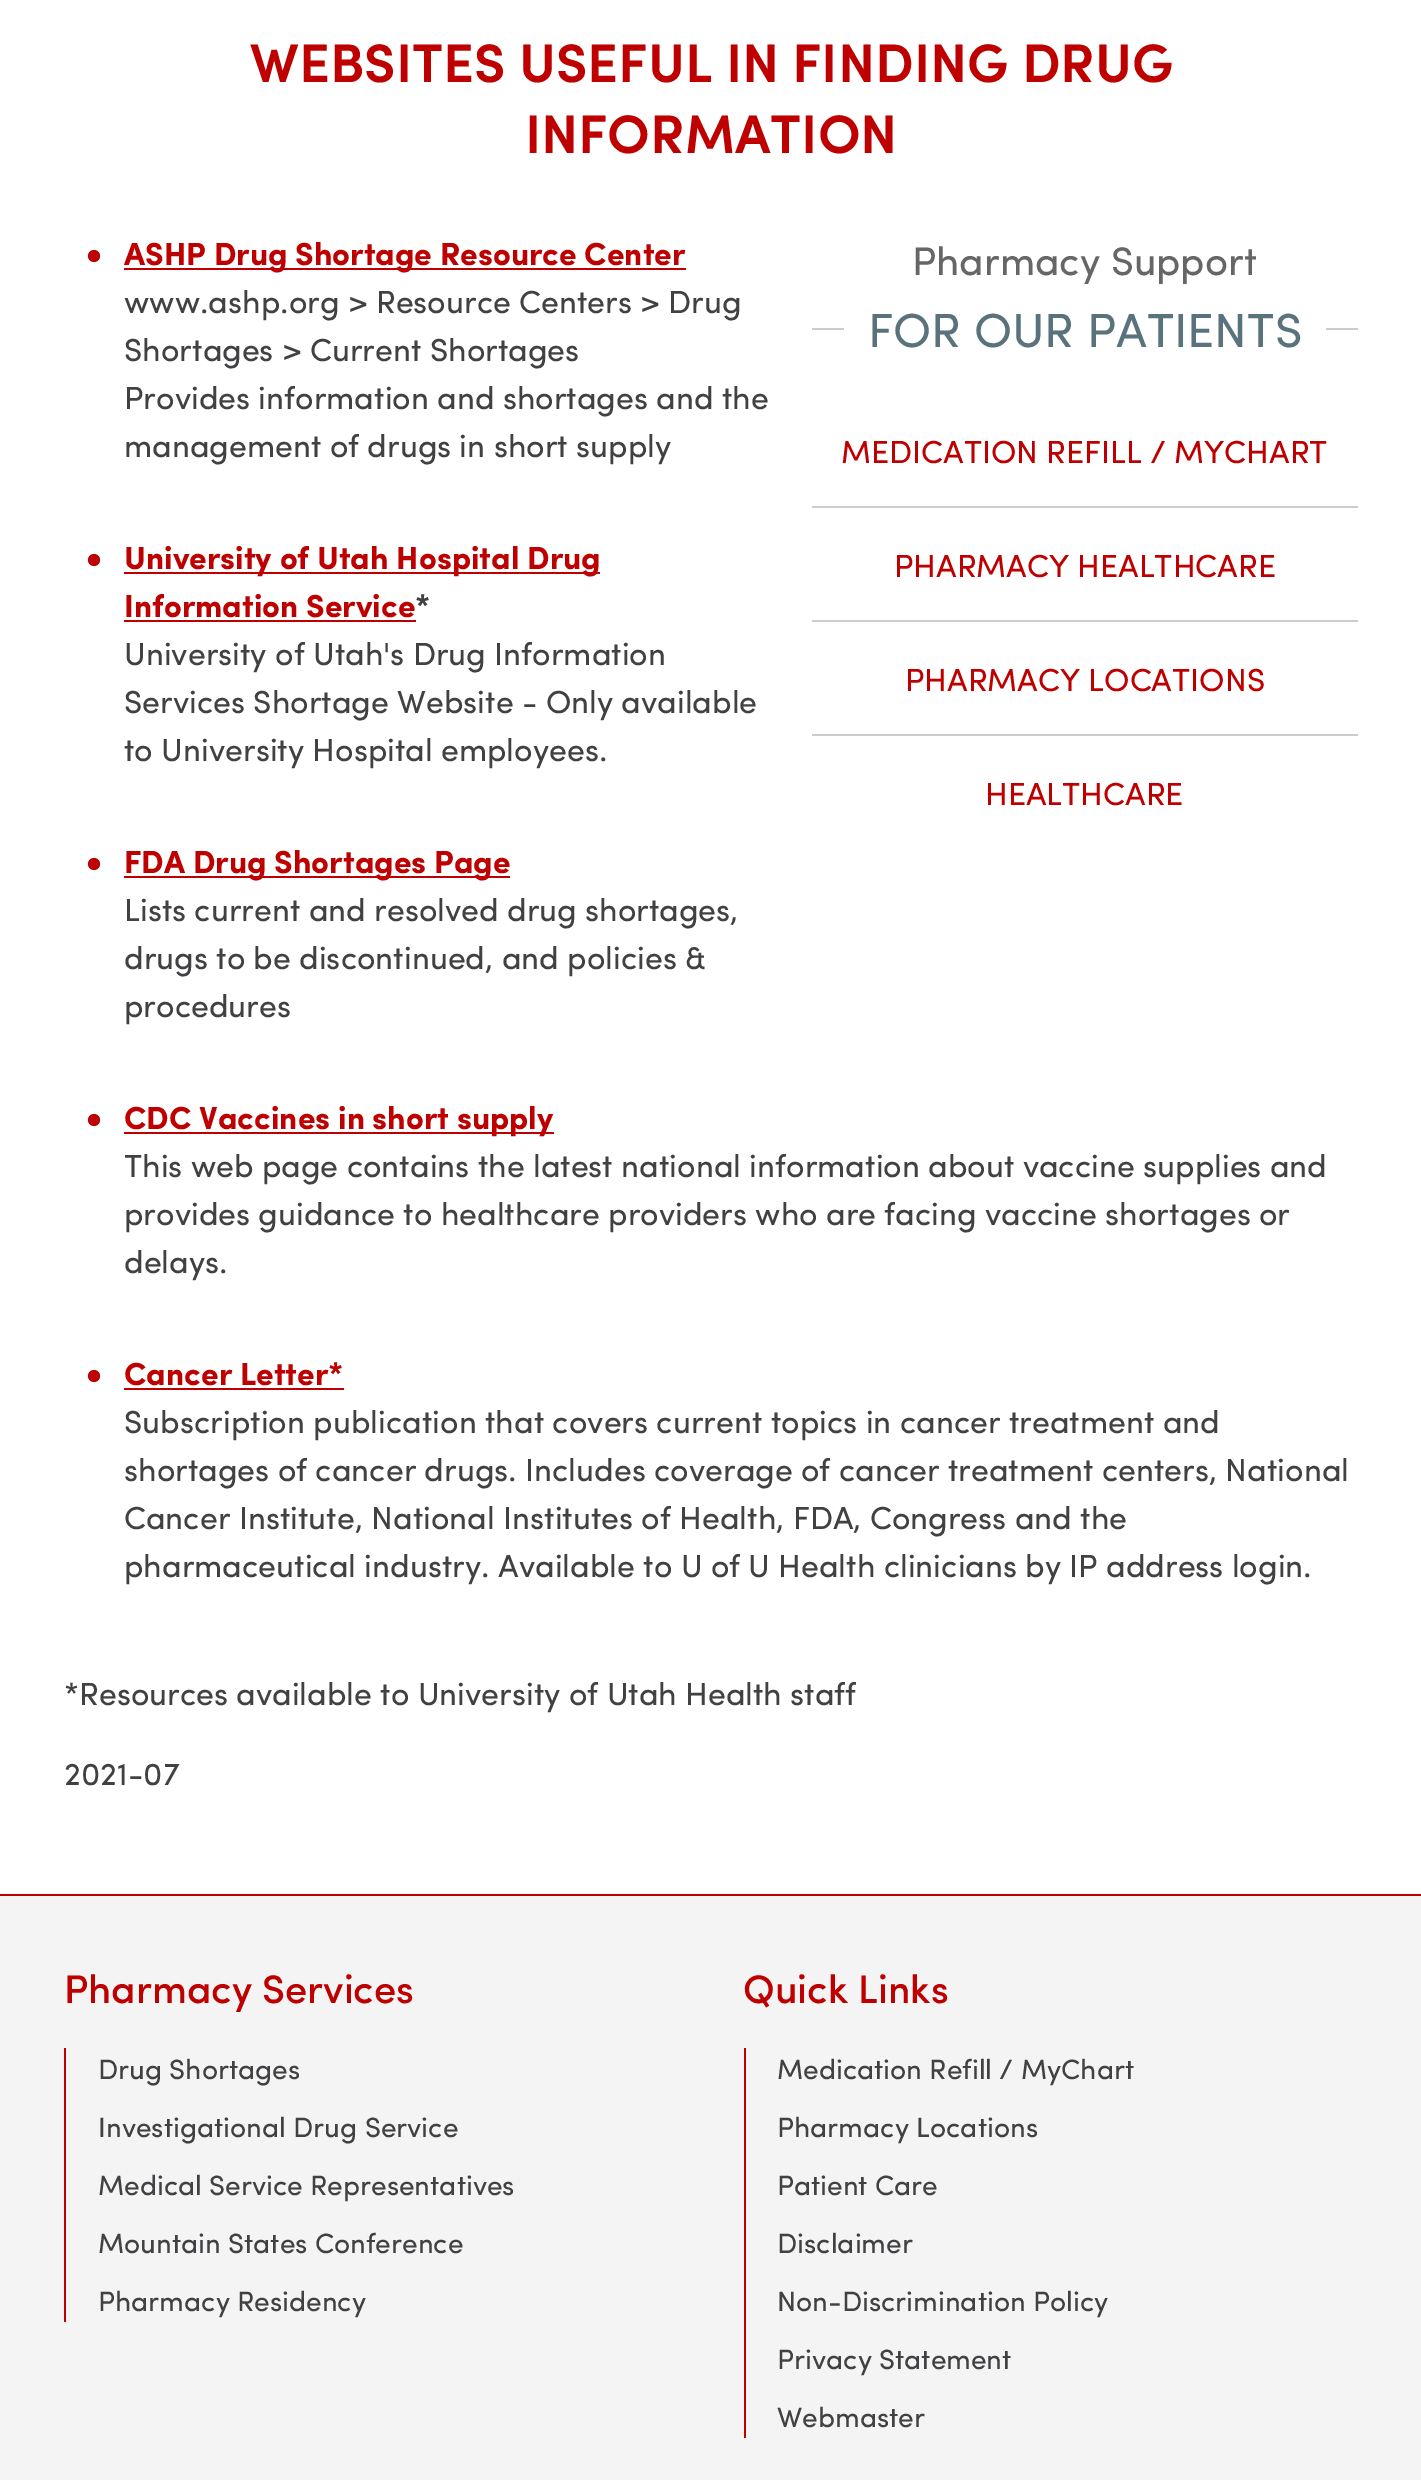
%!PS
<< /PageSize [1421 2480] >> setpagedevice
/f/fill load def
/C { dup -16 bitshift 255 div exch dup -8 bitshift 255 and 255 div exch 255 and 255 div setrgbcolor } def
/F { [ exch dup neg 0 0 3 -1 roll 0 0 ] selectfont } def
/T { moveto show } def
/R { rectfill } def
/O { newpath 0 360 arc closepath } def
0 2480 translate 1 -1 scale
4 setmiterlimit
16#FFFFFF C
0 0 1421 2480 R
/Sofia-SemiBold 54.4 F
16#BE0000 C
(WEBSITES USEFUL IN FINDING DRUG) 250 82 T
(INFORMATION) 525 153 T
94 256 6 O f
124 268 562 2 R
/Sofia-Bold 32 F
(ASHP Drug Shortage Resource Center) 124 265 T
/Sofia-Regular 32 F
16#414042 C
(www.ashp.org > Resource Centers > Drug) 124 313 T
(Shortages > Current Shortages) 124 361 T
(Provides information and shortages and the) 124 409 T
(management of drugs in short supply) 124 457 T
16#BE0000 C
94 560 6 O f
124 572 476 2 R
/Sofia-Bold 32 F
(University of Utah Hospital Drug) 124 569 T
(Information Service) 124 617 T
124 620 292 2 R
16#414042 C
(*) 415 617 T
/Sofia-Regular 32 F
(University of Utah's Drug Information) 124 665 T
(Services Shortage Website - Only available) 124 713 T
(to University Hospital employees.) 124 761 T
16#BE0000 C
94 864 6 O f
124 876 386 2 R
/Sofia-Bold 32 F
(FDA Drug Shortages Page) 124 873 T
/Sofia-Regular 32 F
16#414042 C
(Lists current and resolved drug shortages,) 124 921 T
(drugs to be discontinued, and policies &) 124 969 T
(procedures) 124 1017 T
16#BE0000 C
94 1120 6 O f
124 1132 430 2 R
/Sofia-Bold 32 F
(CDC Vaccines in short supply) 124 1129 T
/Sofia-Regular 32 F
16#414042 C
(This web page contains the latest national information about vaccine supplies and) 124 1177 T
(provides guidance to healthcare providers who are facing vaccine shortages or) 124 1225 T
(delays.) 124 1273 T
16#BE0000 C
94 1376 6 O f
/Sofia-Bold 32 F
(Cancer Letter*) 124 1385 T
124 1388 220 2 R
/Sofia-Regular 32 F
16#414042 C
(Subscription publication that covers current topics in cancer treatment and) 124 1433 T
(shortages of cancer drugs. Includes coverage of cancer treatment centers, National) 124 1481 T
(Cancer Institute, National Institutes of Health, FDA, Congress and the) 124 1529 T
(pharmaceutical industry. Available to U of U Health clinicians by IP address login.) 124 1577 T
(*Resources available to University of Utah Health staff) 64 1705 T
(2021-07) 64 1785 T
/Sofia-Regular 40 F
16#666666 C
(Pharmacy Support) 912 275 T
16#CCCCCC C
812 328 32 2 R
/Sofia-Regular 48 F
16#59737D C
(FOR OUR PATIENTS) 868 347 T
16#CCCCCC C
1326 328 32 2 R
/Sofia-Regular 32 F
16#BE0000 C
(MEDICATION REFILL / MYCHART) 841 463 T
16#CCCCCC C
812 506 546 2 R
16#BE0000 C
(PHARMACY HEALTHCARE) 894 577 T
16#CCCCCC C
812 620 546 2 R
16#BE0000 C
(PHARMACY LOCATIONS) 905 691 T
16#CCCCCC C
812 734 546 2 R
16#BE0000 C
(HEALTHCARE) 985 805 T
16#F4F4F5 C
0 1896 1421 584 R
16#BE0000 C
0 1894 1421 2 R
/Sofia-Medium 40 F
(Pharmacy Services) 64 2003 T
64 2048 2 274 R
/Sofia-Regular 28 F
16#414042 C
(Drug Shortages) 98 2079 T
(Investigational Drug Service) 98 2137 T
(Medical Service Representatives) 98 2195 T
(Mountain States Conference) 98 2253 T
(Pharmacy Residency) 98 2311 T
/Sofia-Medium 40 F
16#BE0000 C
(Quick Links) 743 2003 T
744 2048 2 390 R
/Sofia-Regular 28 F
16#414042 C
(Medication Refill / MyChart) 777 2079 T
(Pharmacy Locations) 777 2137 T
(Patient Care) 777 2195 T
(Disclaimer) 777 2253 T
(Non-Discrimination Policy) 777 2311 T
(Privacy Statement) 777 2369 T
(Webmaster) 777 2427 T
showpage
